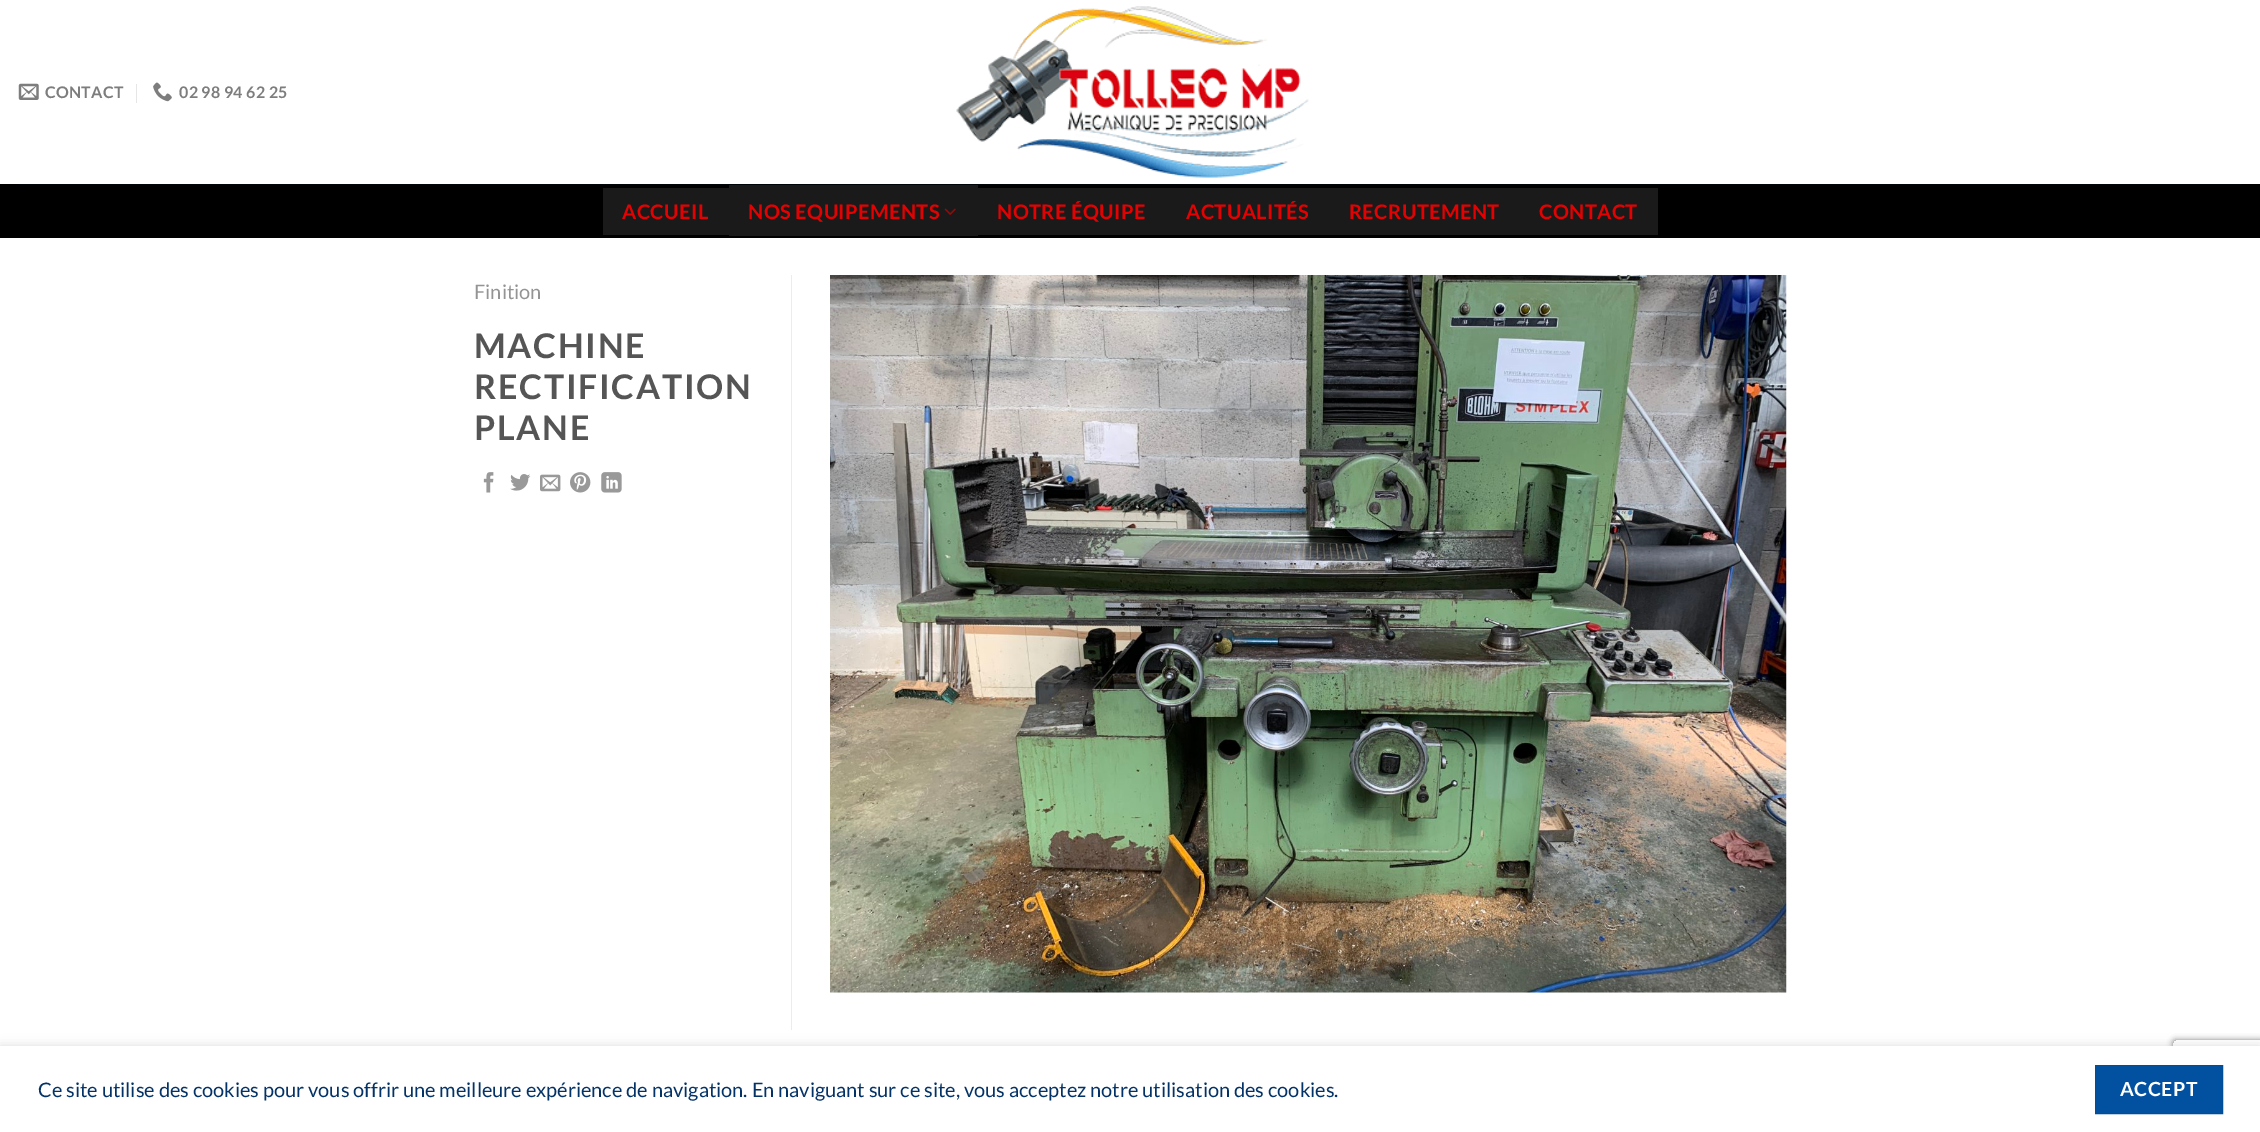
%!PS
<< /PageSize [2260 1132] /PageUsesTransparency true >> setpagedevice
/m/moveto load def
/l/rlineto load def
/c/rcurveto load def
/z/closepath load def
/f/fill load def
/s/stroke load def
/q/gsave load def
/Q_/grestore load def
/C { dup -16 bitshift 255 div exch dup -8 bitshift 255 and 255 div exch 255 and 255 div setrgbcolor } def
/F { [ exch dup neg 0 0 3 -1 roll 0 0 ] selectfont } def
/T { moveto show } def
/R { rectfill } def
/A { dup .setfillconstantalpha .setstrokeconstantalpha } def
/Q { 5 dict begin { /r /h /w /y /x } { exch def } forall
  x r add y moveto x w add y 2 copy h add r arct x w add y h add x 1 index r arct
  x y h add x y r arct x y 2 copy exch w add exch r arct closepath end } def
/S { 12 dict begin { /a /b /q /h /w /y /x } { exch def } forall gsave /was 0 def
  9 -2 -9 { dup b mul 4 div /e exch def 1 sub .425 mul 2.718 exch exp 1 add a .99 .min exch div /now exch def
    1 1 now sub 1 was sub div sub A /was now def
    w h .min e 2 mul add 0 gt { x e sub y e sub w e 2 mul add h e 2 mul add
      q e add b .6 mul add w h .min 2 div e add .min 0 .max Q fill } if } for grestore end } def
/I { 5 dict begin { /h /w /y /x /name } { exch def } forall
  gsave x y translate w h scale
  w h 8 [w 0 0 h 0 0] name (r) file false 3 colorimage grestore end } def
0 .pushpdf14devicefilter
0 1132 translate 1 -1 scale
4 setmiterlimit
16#FFFFFF C
0 0 2260 1132 R
(1.rgb) 18 83 21 17 I
/Lato-Bold 16 F
16#7D7D7D C
45 98 m .25 0 (CONTACT) ashow
16#E6E6E6 C
136 84 1 19 R
(2.rgb) 153 82 19 20 I
16#7D7D7D C
179 98 m .25 0 (02 98 94 62 25) ashow
(3.rgb) 956 6 353 172 I
16#000000 C
0 184 2260 54 R
16#00050A C
19 184 2222 1 R
16#1A1A1A C
603 188 126 47 R
/Lato-Bold 20 F
16#E40101 C
622 219 m .4 0 (ACCUEIL) ashow
16#1A1A1A C
729 185 249 51 R
16#E40101 C
748 219 m .4 0 (NOS EQUIPEMENTS) ashow
(4.rgb) 944 208 12 7 I
16#1A1A1A C
978 188 680 47 R
16#E40101 C
997 219 m .4 0 (NOTRE ÉQUIPE) ashow
1186 219 m .4 0 (ACTUALITÉS) ashow
1349 219 m .4 0 (RECRUTEMENT) ashow
1539 219 m .4 0 (CONTACT) ashow
16#ECECEC C
791 275 1 755 R
/Lato-Regular 20 F
16#949494 C
(Finition) 474 299 T
/Lato-Bold 34 F
16#555555 C
474 358 m 1.75 0 (MACHINE) ashow
474 399 m 1.75 0 (RECTIFICATION) ashow
474 440 m 1.75 0 (PLANE) ashow
(5.rgb) 483 472 11 21 I
(6.rgb) 510 474 21 17 I
(7.rgb) 540 474 21 18 I
(8.rgb) 570 472 21 21 I
(9.rgb) 601 472 21 21 I
(10.rgb) 830 275 957 718 I
16#000000 C
0 1046 2260 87 0 5.5 .14 S
q
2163 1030 m 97 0 l 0 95 l -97 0 l z 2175.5 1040 m 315 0 l 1.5 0 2.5 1 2.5 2.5 c 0 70 l 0 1.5 -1 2.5 -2.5 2.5 c -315 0 l -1.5 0 -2.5 -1 -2.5 -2.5 c 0 -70 l 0 -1.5 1 -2.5 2.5 -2.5 c z eoclip newpath
16#808080 C
2173 1040 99 75 2.5 3 1 S
Q_
16#FFFFFF C
0 1046 2260 86 R
/Lato-Regular 20 F
16#033266 C
(Ce site utilise des cookies pour vous offrir une meilleure expérience de navigation. En naviguant sur ce site, vous acceptez notre utilisation des cookies.) 38 1097 T
16#0251A0 C
2095.5 1065.5 m 127 0 l 0 48 l -127 0 l z q f Q_
16#024D98 C
s
/Lato-Bold 19.5 F
16#FFFFFF C
2120 1096 m .5 0 (ACCEPT) ashow
.poppdf14devicefilter showpage
